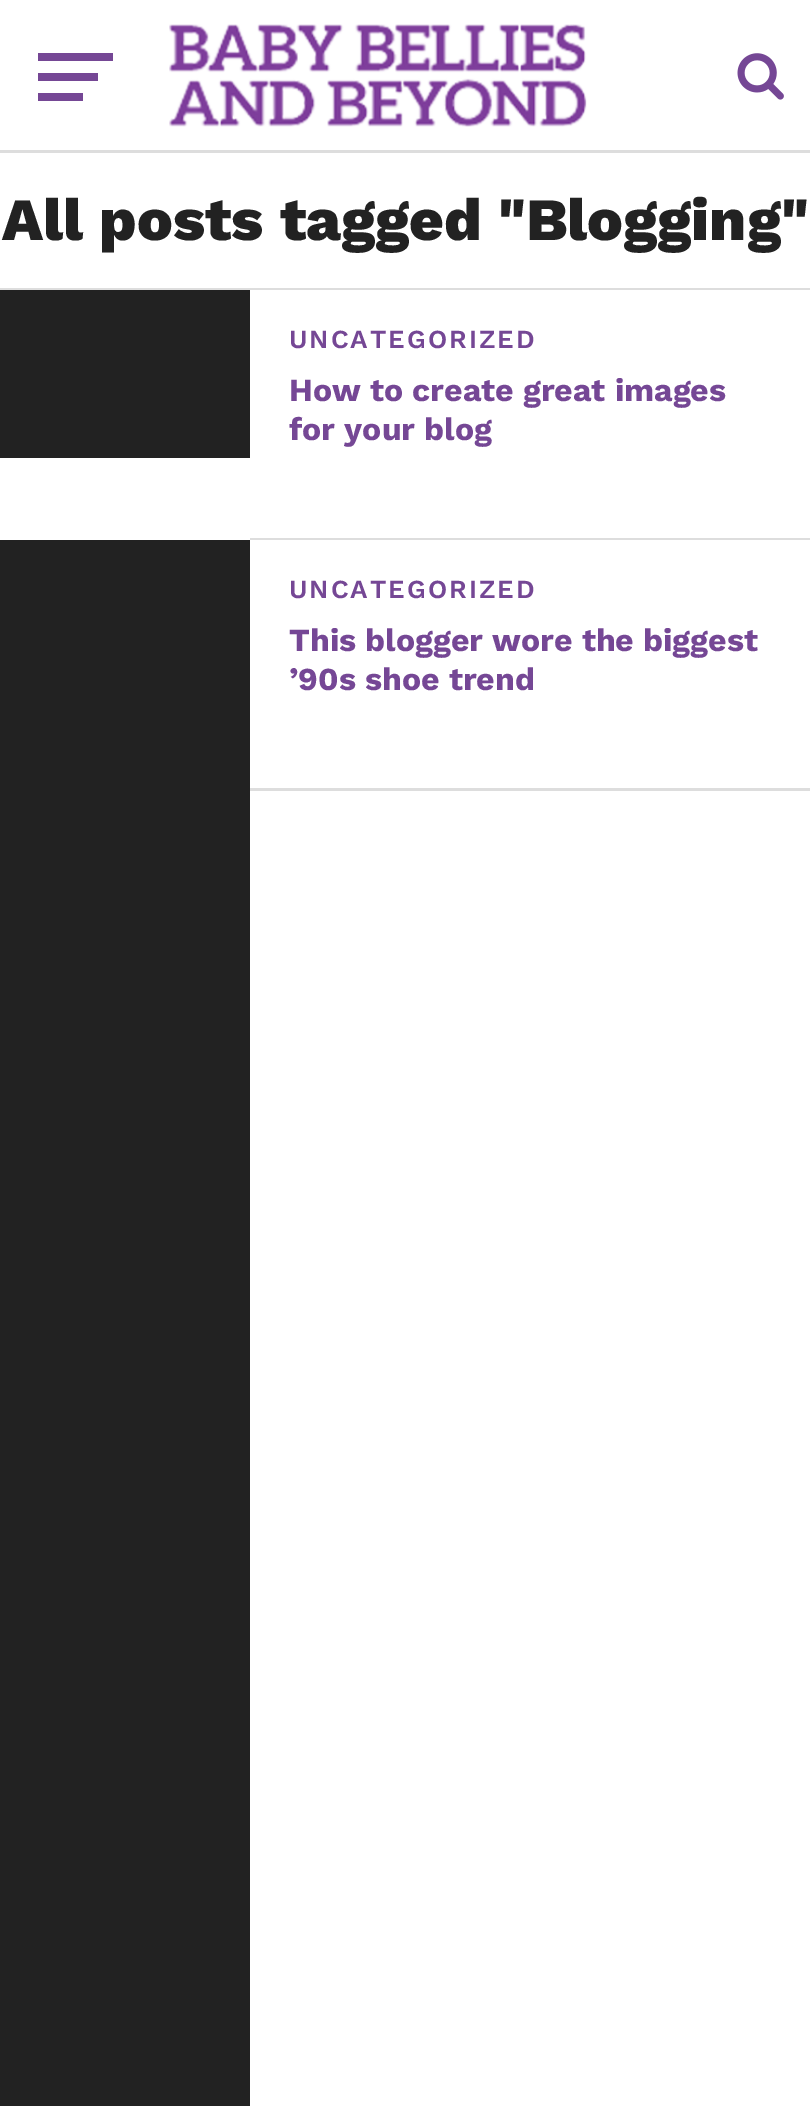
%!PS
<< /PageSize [810 2106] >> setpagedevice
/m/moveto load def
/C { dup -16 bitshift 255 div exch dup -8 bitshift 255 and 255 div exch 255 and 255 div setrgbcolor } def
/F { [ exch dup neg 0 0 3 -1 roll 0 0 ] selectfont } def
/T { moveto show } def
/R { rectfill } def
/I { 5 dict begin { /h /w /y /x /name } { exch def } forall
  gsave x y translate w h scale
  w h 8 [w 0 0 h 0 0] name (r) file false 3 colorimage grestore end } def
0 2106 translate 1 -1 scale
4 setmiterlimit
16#FFFFFF C
0 0 810 2106 R
16#754795 C
38 53 75 8 R
38 73 60 8 R
38 93 45 8 R
(1.rgb) 169 24 418 103 I
(2.rgb) 737 53 47 47 I
16#DDDDDD C
0 150 810 3 R
/WorkSans-ExtraBold 60 F
16#222222 C
(All posts tagged "Blogging") 2 240 T
16#DDDDDD C
0 288 810 2 R
16#222222 C
0 290 250 168 R
16#DDDDDD C
250 538 560 2 R
/WorkSans-SemiBold 26 F
16#754795 C
289 348 m 2 0 (UNCATEGORIZED) ashow
/WorkSans-Bold 32 F
(How to create great images) 289 401 T
(for your blog) 289 440 T
16#222222 C
0 540 250 1566 R
16#DDDDDD C
250 788 560 3 R
/WorkSans-SemiBold 26 F
16#754795 C
289 598 m 2 0 (UNCATEGORIZED) ashow
/WorkSans-Bold 32 F
(This blogger wore the biggest) 289 651 T
(’90s shoe trend) 289 690 T
showpage
